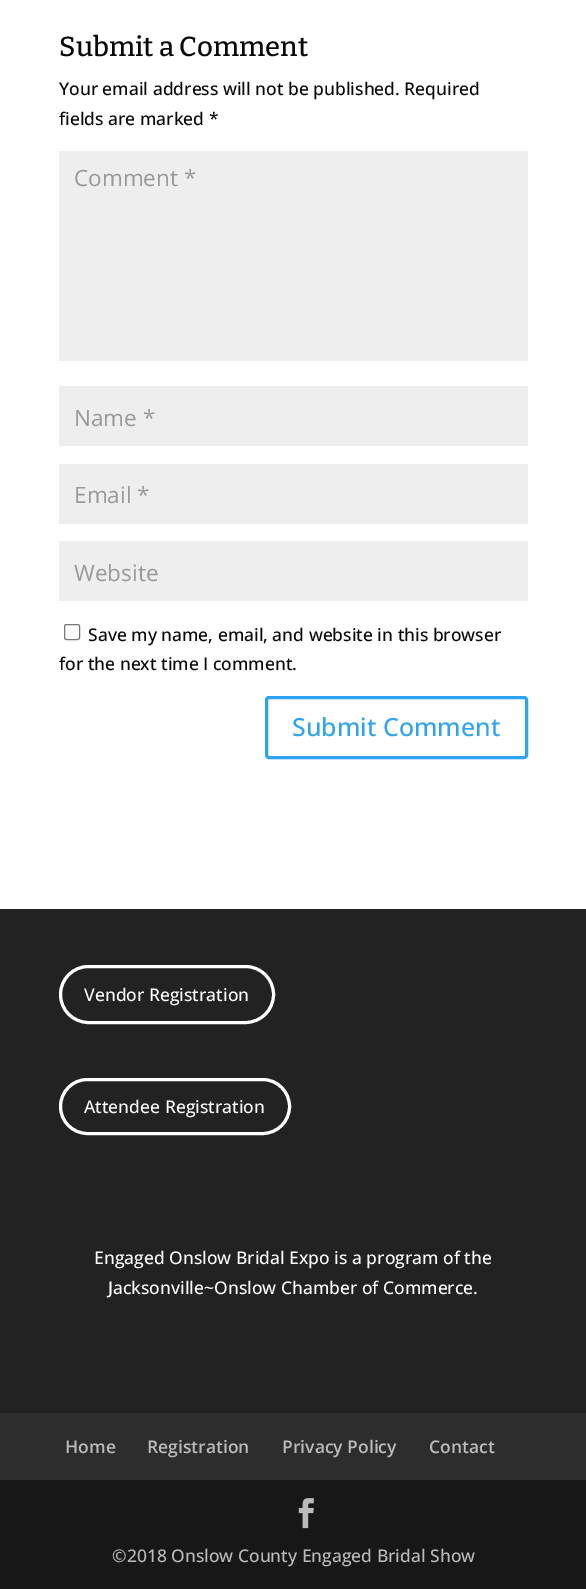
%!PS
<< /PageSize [586 1589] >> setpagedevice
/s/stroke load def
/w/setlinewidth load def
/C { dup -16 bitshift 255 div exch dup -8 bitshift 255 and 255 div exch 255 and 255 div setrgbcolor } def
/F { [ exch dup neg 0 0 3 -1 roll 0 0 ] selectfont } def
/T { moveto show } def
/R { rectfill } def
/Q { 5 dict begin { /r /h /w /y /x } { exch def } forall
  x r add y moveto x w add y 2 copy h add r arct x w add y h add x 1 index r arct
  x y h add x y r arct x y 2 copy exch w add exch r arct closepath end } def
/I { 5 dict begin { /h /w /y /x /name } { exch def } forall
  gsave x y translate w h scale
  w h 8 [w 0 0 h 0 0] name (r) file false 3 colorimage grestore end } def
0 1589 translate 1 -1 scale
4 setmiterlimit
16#FFFFFF C
0 0 586 1589 R
/Bitter-Thin 27.5 F
16#080607 C
(Submit a Comment) 59 56 T
/OpenSans-Medium 17.5 F
(Your email address will not be published. Required) 59 95 T
(fields are marked *) 59 125 T
16#EEEEEE C
59 151 469 210 R
/OpenSans-Regular 22.5 F
16#999999 C
(Comment *) 74 186 T
16#EEEEEE C
59 386 469 60 R
16#999999 C
(Name *) 74 426 T
16#EEEEEE C
59 464 469 60 R
16#999999 C
(Email *) 74 503 T
16#EEEEEE C
59 541 469 60 R
16#999999 C
(Website) 74 581 T
16#767676 C
64.5 624.5 15 15 2 Q s
/OpenSans-Medium 17.5 F
16#080607 C
(Save my name, email, and website in this browser) 88 641 T
(for the next time I comment.) 59 670 T
16#2EA3F2 C
3 w
266.5 697.5 260 60 2.5 Q s
/OpenSans-Medium 25 F
(Submit Comment) 292 736 T
16#222222 C
0 909 586 504 R
16#FFFFFF C
60.5 966.5 213 56 28 Q s
/OpenSans-Medium 17.5 F
(Vendor Registration) 84 1001 T
60.5 1079.5 229 54 27 Q s
(Attendee Registration) 84 1113 T
(Engaged Onslow Bridal Expo is a program of the) 94 1264 T
(Jacksonville~Onslow Chamber of Commerce.) 108 1294 T
16#2D2D2D C
0 1413 586 67 R
/OpenSans-SemiBold 17.5 F
16#BBBBBB C
(Home) 65 1453 T
(Registration) 147 1453 T
(Privacy Policy) 282 1453 T
(Contact) 429 1453 T
16#171717 C
0 1480 586 109 R
(1.rgb) 298 1498 16 31 I
/OpenSans-Medium 17.5 F
16#BBBBBB C
(©2018 Onslow County Engaged Bridal Show) 112 1562 T
showpage
